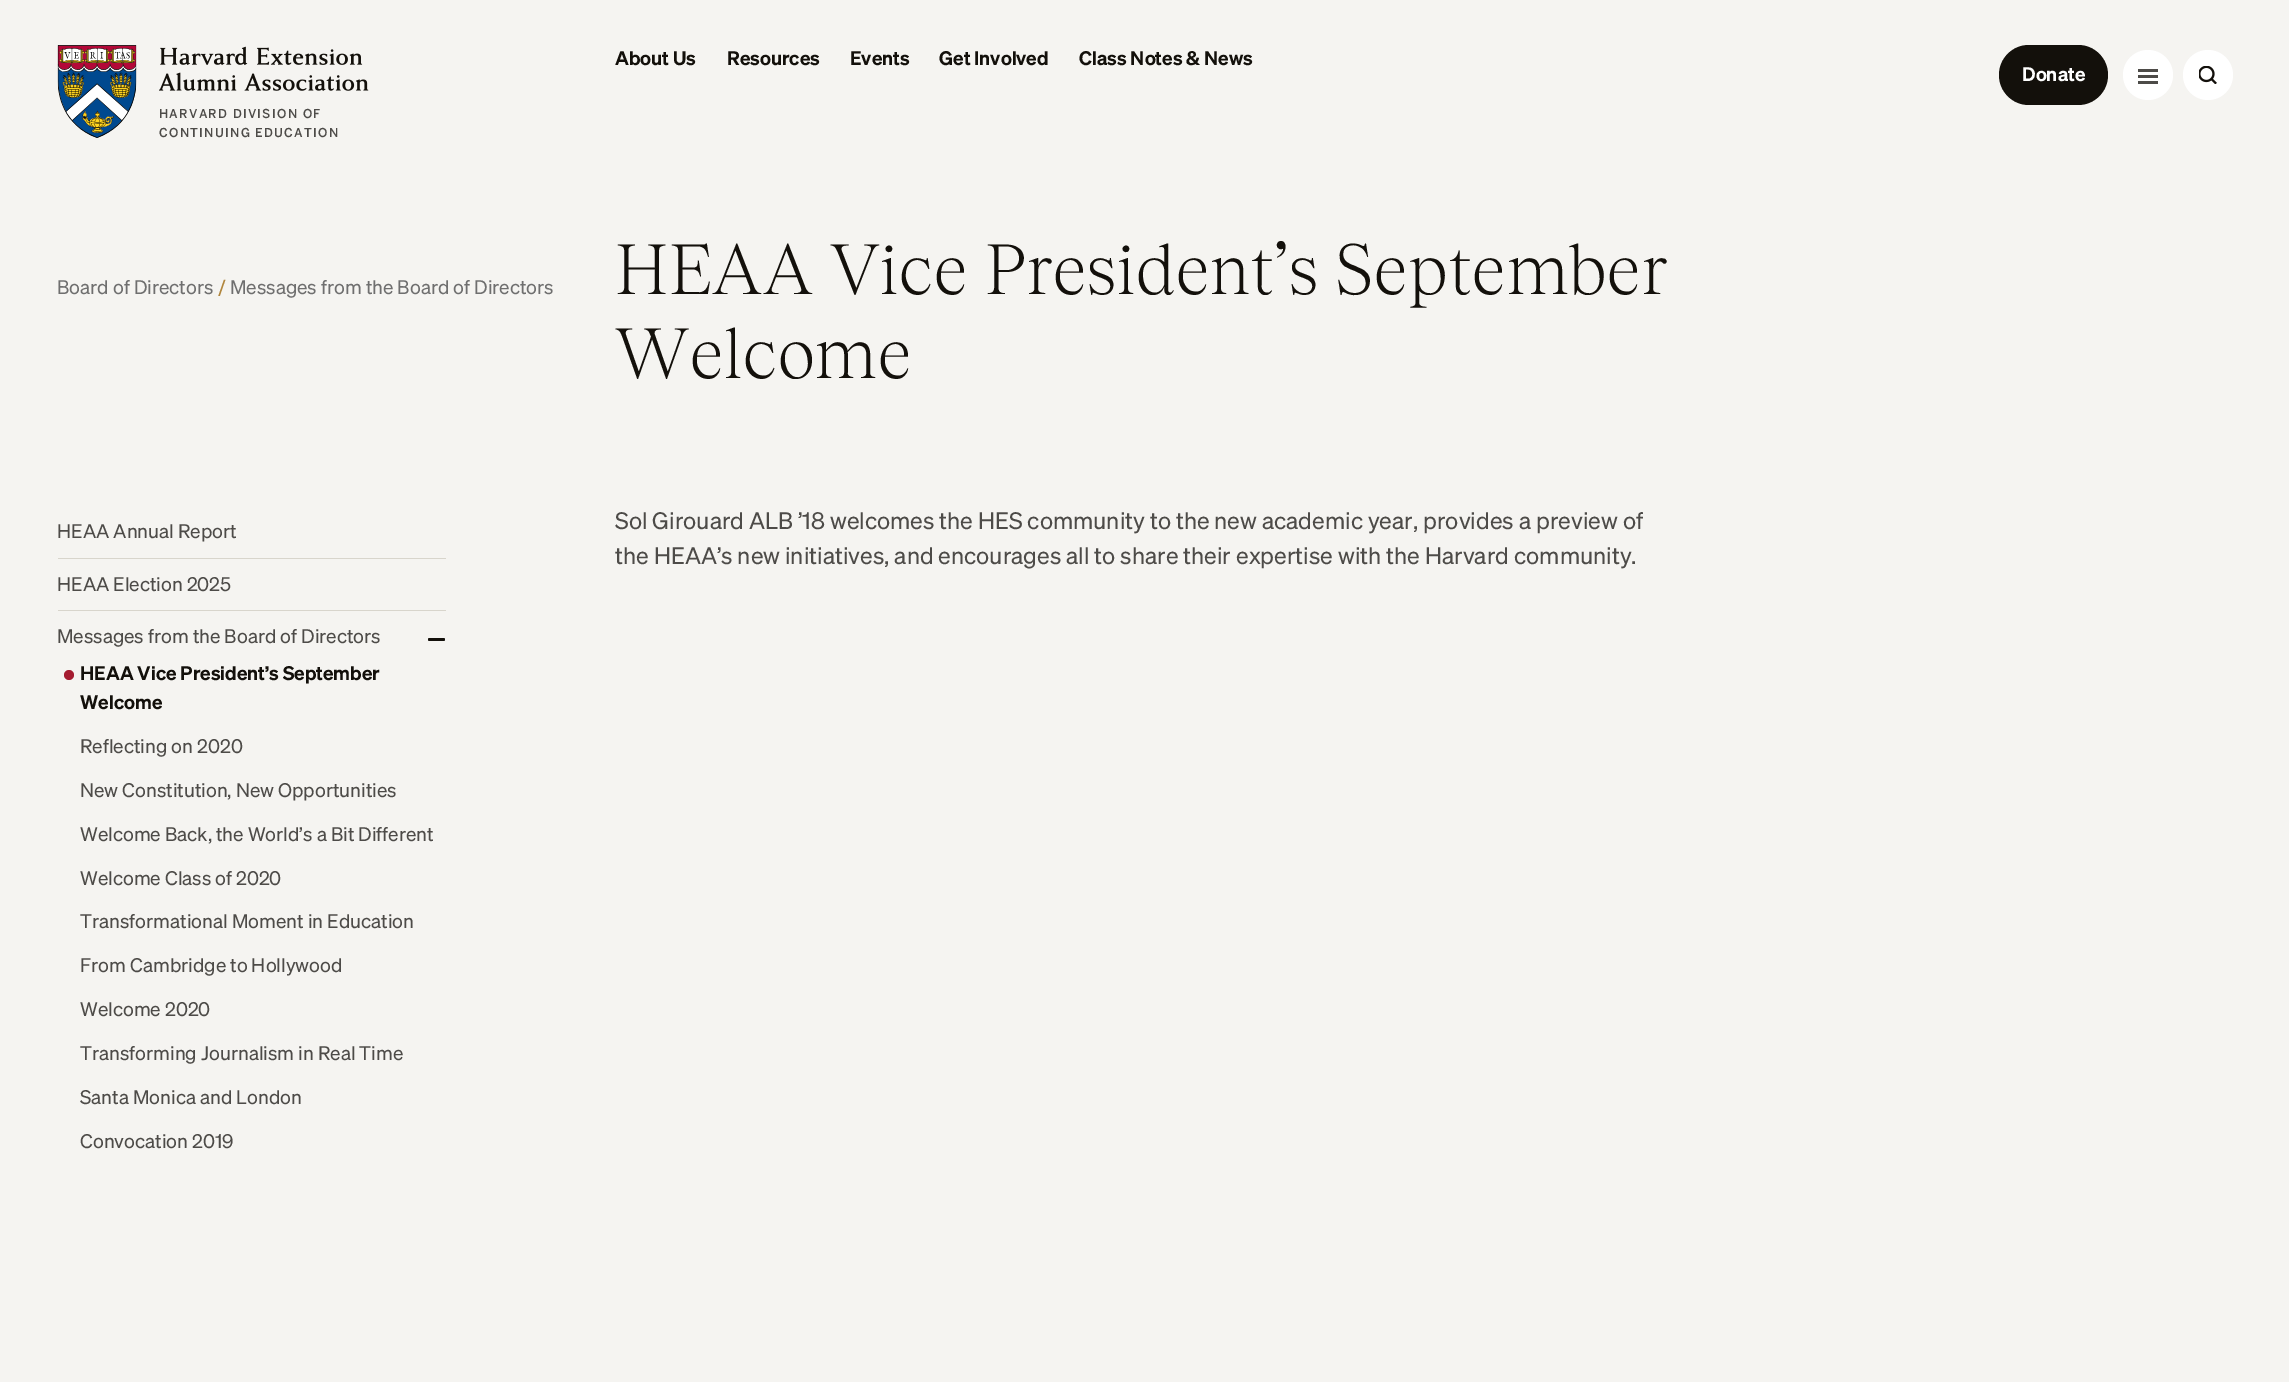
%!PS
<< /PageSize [2289 1382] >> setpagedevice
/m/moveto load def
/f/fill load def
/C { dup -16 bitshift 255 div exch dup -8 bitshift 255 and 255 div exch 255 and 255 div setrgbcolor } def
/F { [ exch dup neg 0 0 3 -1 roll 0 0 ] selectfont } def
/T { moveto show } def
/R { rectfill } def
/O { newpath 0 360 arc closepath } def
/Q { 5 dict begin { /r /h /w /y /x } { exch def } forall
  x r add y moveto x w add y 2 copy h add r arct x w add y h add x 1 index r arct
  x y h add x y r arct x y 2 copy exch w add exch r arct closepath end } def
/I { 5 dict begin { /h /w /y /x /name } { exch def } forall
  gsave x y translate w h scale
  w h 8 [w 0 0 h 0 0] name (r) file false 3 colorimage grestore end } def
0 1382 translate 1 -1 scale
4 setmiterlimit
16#F5F4F1 C
0 0 2289 1382 R
/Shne-SemiBold 19.25 F
16#13100B C
(About Us) 615 65 T
(Resources) 727 65 T
(Events) 850 65 T
(Get Involved) 939 65 T
(Class Notes & News) 1079 65 T
1999 45 109 60 30 Q f
16#FFFFFF C
(Donate) 2022 81 T
2148 75 25 O f
16#4D4B48 C
2138 75 20 3 R
2138 69 20 3 R
2138 81 20 3 R
16#FFFFFF C
2208 75 25 O f
(1.rgb) 2199 66 18 18 I
(2.rgb) 57 45 80 93 I
(3.rgb) 159 46 210 45 I
/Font-Medium 12.25 F
16#4D4B48 C
159 118 m 1.25 0 (HARVARD DIVISION OF) ashow
159 137 m 1.25 0 (CONTINUING EDUCATION) ashow
/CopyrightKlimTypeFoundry-Regular 19.25 F
16#6F6F6F C
(Board of Directors) 57 294 T
16#B1863D C
(/) 218 294 T
16#6F6F6F C
(Messages from the Board of Directors) 230 294 T
/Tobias-Light 70 F
16#13100B C
615 294 m .7 0 (HEAA Vice President’s September) ashow
615 378 m .7 0 (Welcome) ashow
16#D8D5CC C
58 558 388 1 R
/CopyrightKlimTypeFoundry-Regular 19.25 F
16#4D4B48 C
(HEAA Annual Report) 57 538 T
16#D8D5CC C
58 610 388 1 R
16#4D4B48 C
(HEAA Election 2025) 57 591 T
(Messages from the Board of Directors) 57 643 T
16#13100B C
428 638 17 3 1.5 Q f
16#A51C30 C
69 675 5 O f
/Shne-SemiBold 19.25 F
16#13100B C
(HEAA Vice President’s September) 80 680 T
(Welcome) 80 709 T
/CopyrightKlimTypeFoundry-Regular 19.25 F
16#4D4B48 C
(Reflecting on 2020) 80 753 T
(New Constitution, New Opportunities) 80 797 T
(Welcome Back, the World’s a Bit Different) 80 841 T
(Welcome Class of 2020) 80 885 T
(Transformational Moment in Education) 80 928 T
(From Cambridge to Hollywood) 80 972 T
(Welcome 2020) 80 1016 T
(Transforming Journalism in Real Time) 80 1060 T
(Santa Monica and London) 80 1104 T
(Convocation 2019) 80 1148 T
/CopyrightKlimTypeFoundry-Regular 23.3 F
(Sol Girouard ALB ’18 welcomes the HES community to the new academic year, provides a preview of) 615 529 T
(the HEAA’s new initiatives, and encourages all to share their expertise with the Harvard community.) 615 564 T
showpage
